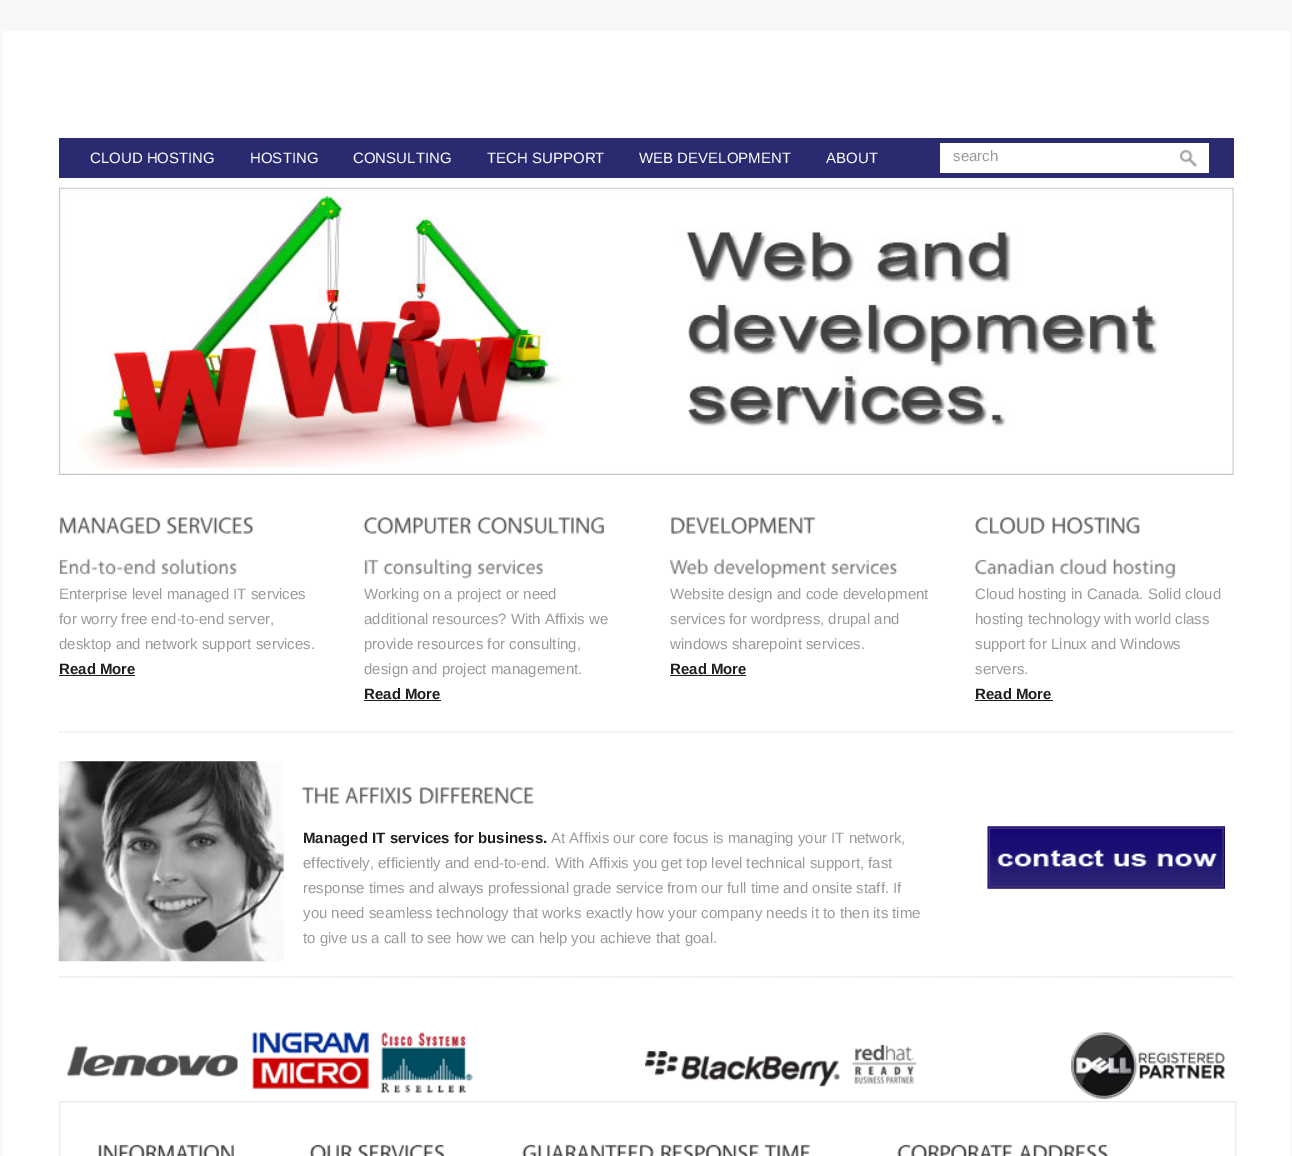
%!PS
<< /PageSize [1292 1156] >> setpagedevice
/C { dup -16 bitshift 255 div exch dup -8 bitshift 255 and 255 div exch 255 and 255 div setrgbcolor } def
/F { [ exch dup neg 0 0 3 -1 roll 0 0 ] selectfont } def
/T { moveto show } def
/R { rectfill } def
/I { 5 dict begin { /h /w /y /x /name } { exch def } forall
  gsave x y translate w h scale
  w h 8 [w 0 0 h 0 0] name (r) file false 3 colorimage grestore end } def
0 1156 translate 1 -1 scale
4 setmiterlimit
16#F7F7F7 C
0 0 1292 1156 R
16#FFFFFF C
3 31 1287 1125 R
16#292A70 C
59 138 1175 40 R
/LiberationSans-Regular 15 F
16#FFFFFF C
(CLOUD HOSTING) 90 163 T
(HOSTING) 250 163 T
(CONSULTING) 353 163 T
(TECH SUPPORT) 487 163 T
(WEB DEVELOPMENT) 639 163 T
(ABOUT) 826 163 T
940 143 269 30 R
(1.rgb) 1180 149 17 18 I
16#9A9A9A C
(search) 953 161 T
(2.rgb) 58 187 1176 288 I
(3.rgb) 59 517 102 17 I
(4.rgb) 166 517 88 17 I
(5.rgb) 59 558 97 17 I
(6.rgb) 161 558 76 17 I
(Enterprise level managed IT services) 59 599 T
(for worry free end-to-end server,) 59 624 T
(desktop and network support services.) 59 649 T
/LiberationSans-Bold 15 F
16#1F1F1F C
(Read More) 59 674 T
59 675 76 1 R
(7.rgb) 363 517 109 17 I
(8.rgb) 477 517 127 17 I
(9.rgb) 364 559 15 15 I
(10.rgb) 383 558 89 21 I
(11.rgb) 477 559 66 16 I
/LiberationSans-Regular 15 F
16#9A9A9A C
(Working on a project or need) 364 599 T
(additional resources? With Affixis we) 364 624 T
(provide resources for consulting,) 364 649 T
(design and project management.) 364 674 T
/LiberationSans-Bold 15 F
16#1F1F1F C
(Read More) 364 699 T
364 700 77 1 R
(12.rgb) 671 517 145 17 I
(13.rgb) 669 558 39 17 I
(14.rgb) 713 558 114 21 I
(15.rgb) 831 560 66 15 I
/LiberationSans-Regular 15 F
16#9A9A9A C
(Website design and code development) 670 599 T
(services for wordpress, drupal and) 670 624 T
(windows sharepoint services.) 670 649 T
/LiberationSans-Bold 15 F
16#1F1F1F C
(Read More) 670 674 T
670 675 76 1 R
(16.rgb) 974 517 72 17 I
(17.rgb) 1052 517 89 17 I
(18.rgb) 974 558 80 18 I
(19.rgb) 1059 558 48 17 I
(20.rgb) 1113 558 63 21 I
/LiberationSans-Regular 15 F
16#9A9A9A C
(Cloud hosting in Canada. Solid cloud) 975 599 T
(hosting technology with world class) 975 624 T
(support for Linux and Windows) 975 649 T
(servers.) 975 674 T
/LiberationSans-Bold 15 F
16#1F1F1F C
(Read More) 975 699 T
975 700 78 1 R
(21.rgb) 59 731 1175 2 I
(22.rgb) 58 761 226 201 I
(23.rgb) 301 787 39 17 I
(24.rgb) 345 787 67 17 I
(25.rgb) 419 787 115 17 I
(Managed IT services for business.) 303 843 T
/LiberationSans-Regular 15 F
16#9A9A9A C
(At Affixis our core focus is managing your IT network,) 551 843 T
(effectively, efficiently and end-to-end. With Affixis you get top level technical support, fast) 303 868 T
(response times and always professional grade service from our full time and onsite staff. If) 303 893 T
(you need seamless technology that works exactly how your company needs it to then its time) 303 918 T
(to give us a call to see how we can help you achieve that goal.) 303 943 T
(26.rgb) 987 826 238 63 I
(21.rgb) 59 976 1175 2 I
(27.rgb) 67 1046 171 31 I
(28.rgb) 252 1032 117 57 I
(29.rgb) 381 1032 92 61 I
(30.rgb) 645 1051 195 36 I
(31.rgb) 852 1044 65 40 I
(32.rgb) 1071 1032 154 67 I
16#E8E8E8 C
59.5 1101.5 1176 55 rectstroke
(33.rgb) 98 1144 136 12 I
(34.rgb) 310 1144 42 12 I
(35.rgb) 358 1144 87 12 I
(36.rgb) 522 1144 132 12 I
(37.rgb) 661 1144 98 12 I
(38.rgb) 764 1144 47 12 I
(39.rgb) 897 1144 116 12 I
(40.rgb) 1020 1144 88 12 I
showpage
